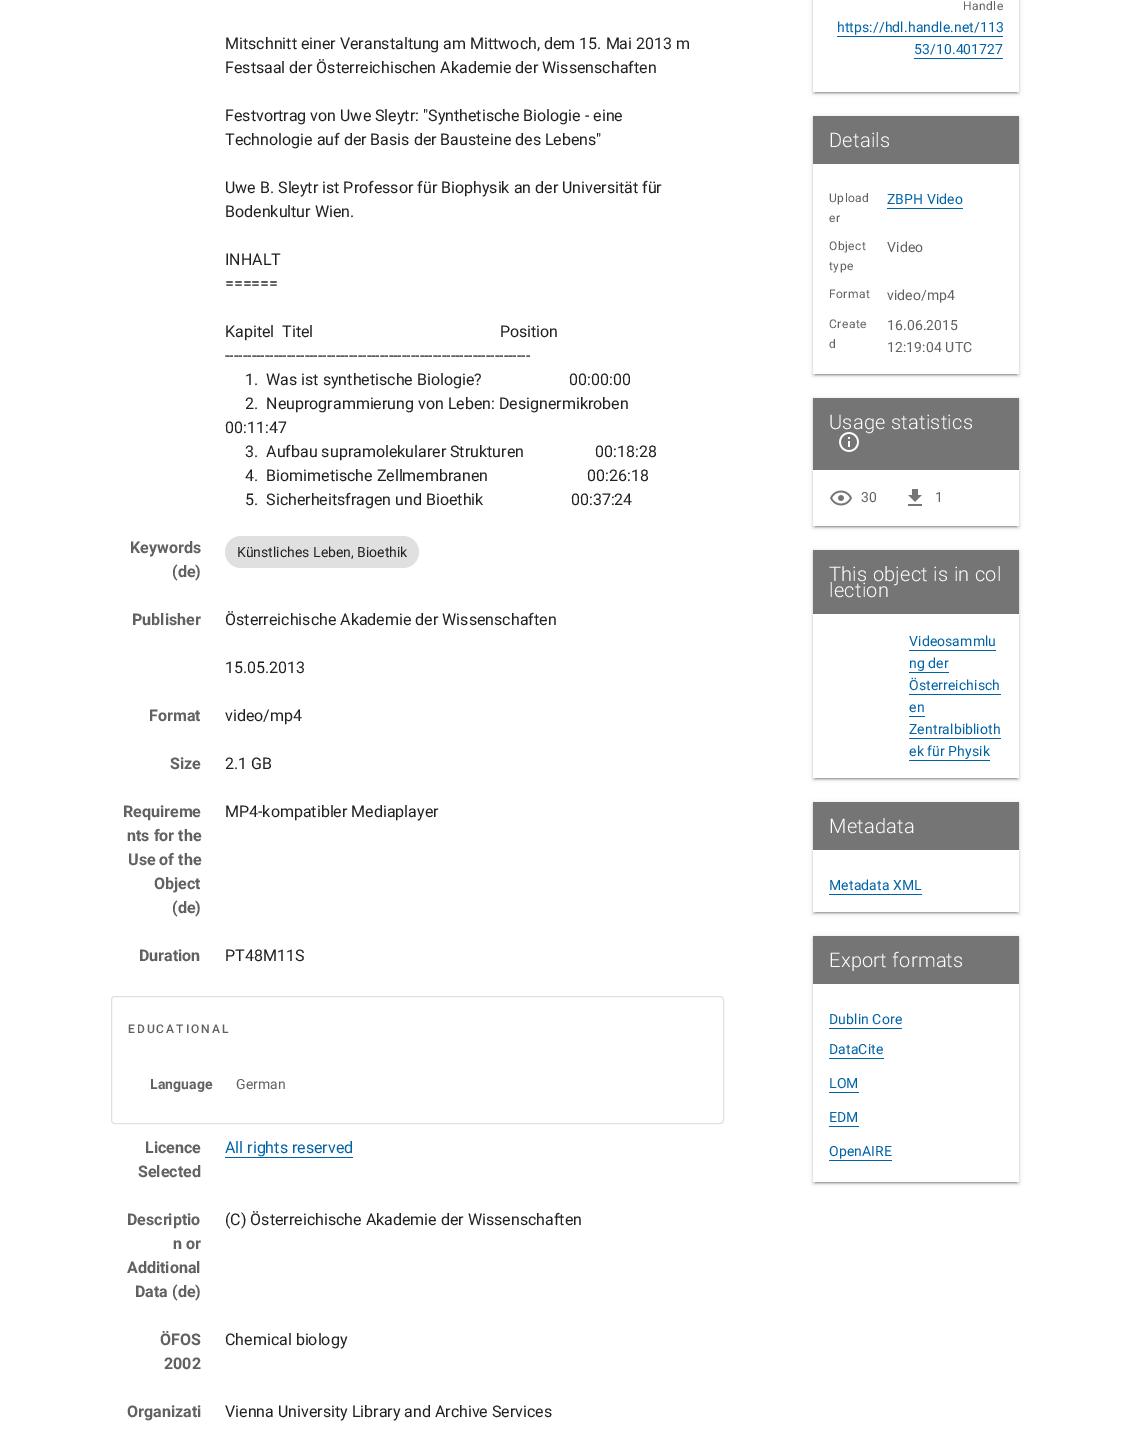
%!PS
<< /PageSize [1142 1435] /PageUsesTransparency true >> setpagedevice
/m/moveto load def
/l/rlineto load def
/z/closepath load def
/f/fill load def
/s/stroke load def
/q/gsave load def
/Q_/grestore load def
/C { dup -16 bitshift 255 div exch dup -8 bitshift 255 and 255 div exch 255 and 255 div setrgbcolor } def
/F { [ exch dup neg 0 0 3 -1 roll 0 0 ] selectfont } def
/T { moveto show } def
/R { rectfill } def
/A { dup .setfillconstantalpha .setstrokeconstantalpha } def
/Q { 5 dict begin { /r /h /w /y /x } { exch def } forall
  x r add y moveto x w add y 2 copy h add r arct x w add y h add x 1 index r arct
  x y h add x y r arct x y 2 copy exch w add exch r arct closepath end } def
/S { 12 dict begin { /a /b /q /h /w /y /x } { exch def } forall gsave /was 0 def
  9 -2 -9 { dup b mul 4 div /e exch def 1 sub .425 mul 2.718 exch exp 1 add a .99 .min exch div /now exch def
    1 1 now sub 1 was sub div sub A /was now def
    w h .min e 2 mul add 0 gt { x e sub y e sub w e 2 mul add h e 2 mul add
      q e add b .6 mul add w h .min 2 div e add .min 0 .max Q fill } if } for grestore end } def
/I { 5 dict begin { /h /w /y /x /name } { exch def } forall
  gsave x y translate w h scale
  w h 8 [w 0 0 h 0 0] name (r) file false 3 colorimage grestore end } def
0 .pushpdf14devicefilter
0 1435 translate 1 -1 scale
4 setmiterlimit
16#FFFFFF C
0 0 1142 1435 R
/Roboto-Regular 16 F
16#212121 C
(Mitschnitt einer Veranstaltung am Mittwoch, dem 15. Mai 2013 m) 225 49 T
(Festsaal der Österreichischen Akademie der Wissenschaften) 225 73 T
(Festvortrag von Uwe Sleytr: "Synthetische Biologie - eine) 225 121 T
(Technologie auf der Basis der Bausteine des Lebens") 225 145 T
(Uwe B. Sleytr ist Professor für Biophysik an der Universität für) 225 193 T
(Bodenkultur Wien.) 225 217 T
(INHALT) 225 265 T
(======) 225 289 T
(Kapitel  Titel                                               Position) 225 337 T
(---------------------------------------------------------------------) 225 361 T
(1.  Was ist synthetische Biologie?                      00:00:00) 245 385 T
(2.  Neuprogrammierung von Leben: Designermikroben) 245 409 T
(00:11:47) 225 433 T
(3.  Aufbau supramolekularer Strukturen                  00:18:28) 245 457 T
(4.  Biomimetische Zellmembranen                         00:26:18) 245 481 T
(5.  Sicherheitsfragen und Bioethik                      00:37:24) 245 505 T
/Roboto-Bold 16 F
16#616161 C
(Keywords) 130 553 T
(\(de\)) 172 577 T
16#E0E0E0 C
225 536 194 32 16 Q f
/Roboto-Regular 14 F
16#212121 C
(Künstliches Leben, Bioethik) 237 557 T
/Roboto-Bold 16 F
16#616161 C
(Publisher) 132 625 T
/Roboto-Regular 16 F
16#212121 C
(Österreichische Akademie der Wissenschaften) 225 625 T
(15.05.2013) 225 673 T
/Roboto-Bold 16 F
16#616161 C
(Format) 149 721 T
/Roboto-Regular 16 F
16#212121 C
(video/mp4) 225 721 T
/Roboto-Bold 16 F
16#616161 C
(Size) 170 769 T
/Roboto-Regular 16 F
16#212121 C
(2.1 GB) 225 769 T
/Roboto-Bold 16 F
16#616161 C
(Requireme) 123 817 T
(nts for the) 127 841 T
(Use of the) 128 865 T
(Object) 154 889 T
(\(de\)) 172 913 T
/Roboto-Regular 16 F
16#212121 C
(MP4-kompatibler Mediaplayer) 225 817 T
/Roboto-Bold 16 F
16#616161 C
(Duration) 139 961 T
/Roboto-Regular 16 F
16#212121 C
(PT48M11S) 225 961 T
16#E0E0E0 C
111.5 996.5 612 127 3.5 Q s
/Roboto-Medium 12 F
16#616161 C
128 1033 m 2 0 (EDUCATIONAL) ashow
/Roboto-Bold 14 F
150 1089 m .1 0 (Language) ashow
/Roboto-Regular 14 F
236 1089 m .1 0 (German) ashow
/Roboto-Bold 16 F
(Licence) 145 1153 T
(Selected) 138 1177 T
/Roboto-Regular 16 F
16#0063A6 C
(All rights reserved) 225 1153 T
225 1157 128 1 R
/Roboto-Bold 16 F
16#616161 C
(Descriptio) 127 1225 T
(n or) 173 1249 T
(Additional) 127 1273 T
(Data \(de\)) 135 1297 T
/Roboto-Regular 16 F
16#212121 C
(\(C\) Österreichische Akademie der Wissenschaften) 225 1225 T
/Roboto-Bold 16 F
16#616161 C
(ÖFOS) 160 1345 T
(2002) 164 1369 T
/Roboto-Regular 16 F
16#212121 C
(Chemical biology) 225 1345 T
/Roboto-Bold 16 F
16#616161 C
(Organizati) 127 1417 T
/Roboto-Regular 16 F
16#212121 C
(Vienna University Library and Archive Services) 225 1417 T
q
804 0 m 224 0 l 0 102 l -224 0 l z 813 -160 m 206 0 l 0 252 l -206 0 l z eoclip newpath
16#000000 C
813 -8 206 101 0 2.5 .12 S
Q_
q
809 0 m 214 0 l 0 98 l -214 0 l z 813 -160 m 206 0 l 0 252 l -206 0 l z eoclip newpath
16#000000 C
813 -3 206 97 0 1 .14 S
Q_
q
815 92 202 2 rectclip
16#000000 C
815 -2 202 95 0 .5 .2 S
Q_
/Roboto-Regular 12 F
16#616161 C
963 10 m .5 0 (Handle) ashow
/Roboto-Regular 14 F
16#0063A6 C
837 32 m .1 0 (https://hdl.handle.net/113) ashow
837 36 166 1 R
914 54 m .1 0 (53/10.401727) ashow
914 58 89 1 R
q
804 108 m 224 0 l 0 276 l -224 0 l z 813 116 m 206 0 l 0 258 l -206 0 l z eoclip newpath
16#000000 C
813 117 206 258 0 2.5 .12 S
Q_
q
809 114 m 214 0 l 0 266 l -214 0 l z 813 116 m 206 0 l 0 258 l -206 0 l z eoclip newpath
16#000000 C
813 118 206 258 0 1 .14 S
Q_
q
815 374 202 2 rectclip
16#000000 C
815 121 202 254 0 .5 .2 S
Q_
16#757575 C
813 116 206 48 R
/Roboto-Light 20 F
16#FFFFFF C
829 147 m .25 0 (Details) ashow
/Roboto-Regular 12 F
16#616161 C
829 202 m .5 0 (Upload) ashow
829 222 m .5 0 (er) ashow
/Roboto-Regular 14 F
16#0063A6 C
887 204 m .1 0 (ZBPH Video) ashow
887 208 76 1 R
/Roboto-Regular 12 F
16#616161 C
829 250 m .5 0 (Object) ashow
829 270 m .5 0 (type) ashow
/Roboto-Regular 14 F
887 252 m .1 0 (Video) ashow
/Roboto-Regular 12 F
829 298 m .5 0 (Format) ashow
/Roboto-Regular 14 F
887 300 m .1 0 (video/mp4) ashow
/Roboto-Regular 12 F
829 328 m .5 0 (Create) ashow
829 348 m .5 0 (d) ashow
/Roboto-Regular 14 F
887 330 m .1 0 (16.06.2015) ashow
887 352 m .1 0 (12:19:04 UTC) ashow
q
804 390 m 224 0 l 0 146 l -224 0 l z 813 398 m 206 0 l 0 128 l -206 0 l z eoclip newpath
16#000000 C
813 399 206 128 0 2.5 .12 S
Q_
q
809 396 m 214 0 l 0 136 l -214 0 l z 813 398 m 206 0 l 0 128 l -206 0 l z eoclip newpath
16#000000 C
813 400 206 128 0 1 .14 S
Q_
q
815 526 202 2 rectclip
16#000000 C
815 403 202 124 0 .5 .2 S
Q_
16#757575 C
813 398 206 72 R
/Roboto-Light 20 F
16#FFFFFF C
829 429 m .25 0 (Usage statistics) ashow
(1.rgb) 839 432 20 20 I
(2.rgb) 830 490 22 16 I
/Roboto-Regular 14 F
16#616161 C
861 502 m .1 0 (30) ashow
(3.rgb) 908 489 14 17 I
935 502 m .1 0 (1) ashow
q
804 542 m 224 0 l 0 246 l -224 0 l z 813 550 m 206 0 l 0 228 l -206 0 l z eoclip newpath
16#000000 C
813 551 206 228 0 2.5 .12 S
Q_
q
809 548 m 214 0 l 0 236 l -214 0 l z 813 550 m 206 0 l 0 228 l -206 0 l z eoclip newpath
16#000000 C
813 552 206 228 0 1 .14 S
Q_
q
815 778 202 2 rectclip
16#000000 C
815 555 202 224 0 .5 .2 S
Q_
16#757575 C
813 550 206 64 R
/Roboto-Light 20 F
16#FFFFFF C
829 581 m .25 0 (This object is in col) ashow
829 597 m .25 0 (lection) ashow
/Roboto-Regular 14 F
16#0063A6 C
909 646 m .1 0 (Videosammlu) ashow
909 650 87 1 R
909 668 m .1 0 (ng der) ashow
909 672 40 1 R
909 690 m .1 0 (Österreichisch) ashow
909 694 92 1 R
909 712 m .1 0 (en) ashow
909 716 16 1 R
909 734 m .1 0 (Zentralbiblioth) ashow
909 738 92 1 R
909 756 m .1 0 (ek für Physik) ashow
909 760 81 1 R
q
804 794 m 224 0 l 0 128 l -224 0 l z 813 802 m 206 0 l 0 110 l -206 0 l z eoclip newpath
16#000000 C
813 803 206 110 0 2.5 .12 S
Q_
q
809 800 m 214 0 l 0 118 l -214 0 l z 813 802 m 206 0 l 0 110 l -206 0 l z eoclip newpath
16#000000 C
813 804 206 110 0 1 .14 S
Q_
q
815 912 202 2 rectclip
16#000000 C
815 807 202 106 0 .5 .2 S
Q_
16#757575 C
813 802 206 48 R
/Roboto-Light 20 F
16#FFFFFF C
829 833 m .25 0 (Metadata) ashow
/Roboto-Regular 14 F
16#0063A6 C
829 890 m .1 0 (Metadata XML) ashow
829 894 93 1 R
q
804 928 m 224 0 l 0 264 l -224 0 l z 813 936 m 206 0 l 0 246 l -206 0 l z eoclip newpath
16#000000 C
813 937 206 246 0 2.5 .12 S
Q_
q
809 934 m 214 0 l 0 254 l -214 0 l z 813 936 m 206 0 l 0 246 l -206 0 l z eoclip newpath
16#000000 C
813 938 206 246 0 1 .14 S
Q_
q
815 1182 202 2 rectclip
16#000000 C
815 941 202 242 0 .5 .2 S
Q_
16#757575 C
813 936 206 48 R
/Roboto-Light 20 F
16#FFFFFF C
829 967 m .25 0 (Export formats) ashow
/Roboto-Regular 14 F
16#0063A6 C
829 1024 m .1 0 (Dublin Core) ashow
829 1028 73 1 R
829 1054 m .1 0 (DataCite) ashow
829 1058 55 1 R
829 1088 m .1 0 (LOM) ashow
829 1092 30 1 R
829 1122 m .1 0 (EDM) ashow
829 1126 30 1 R
829 1156 m .1 0 (OpenAIRE) ashow
829 1160 63 1 R
.poppdf14devicefilter showpage
